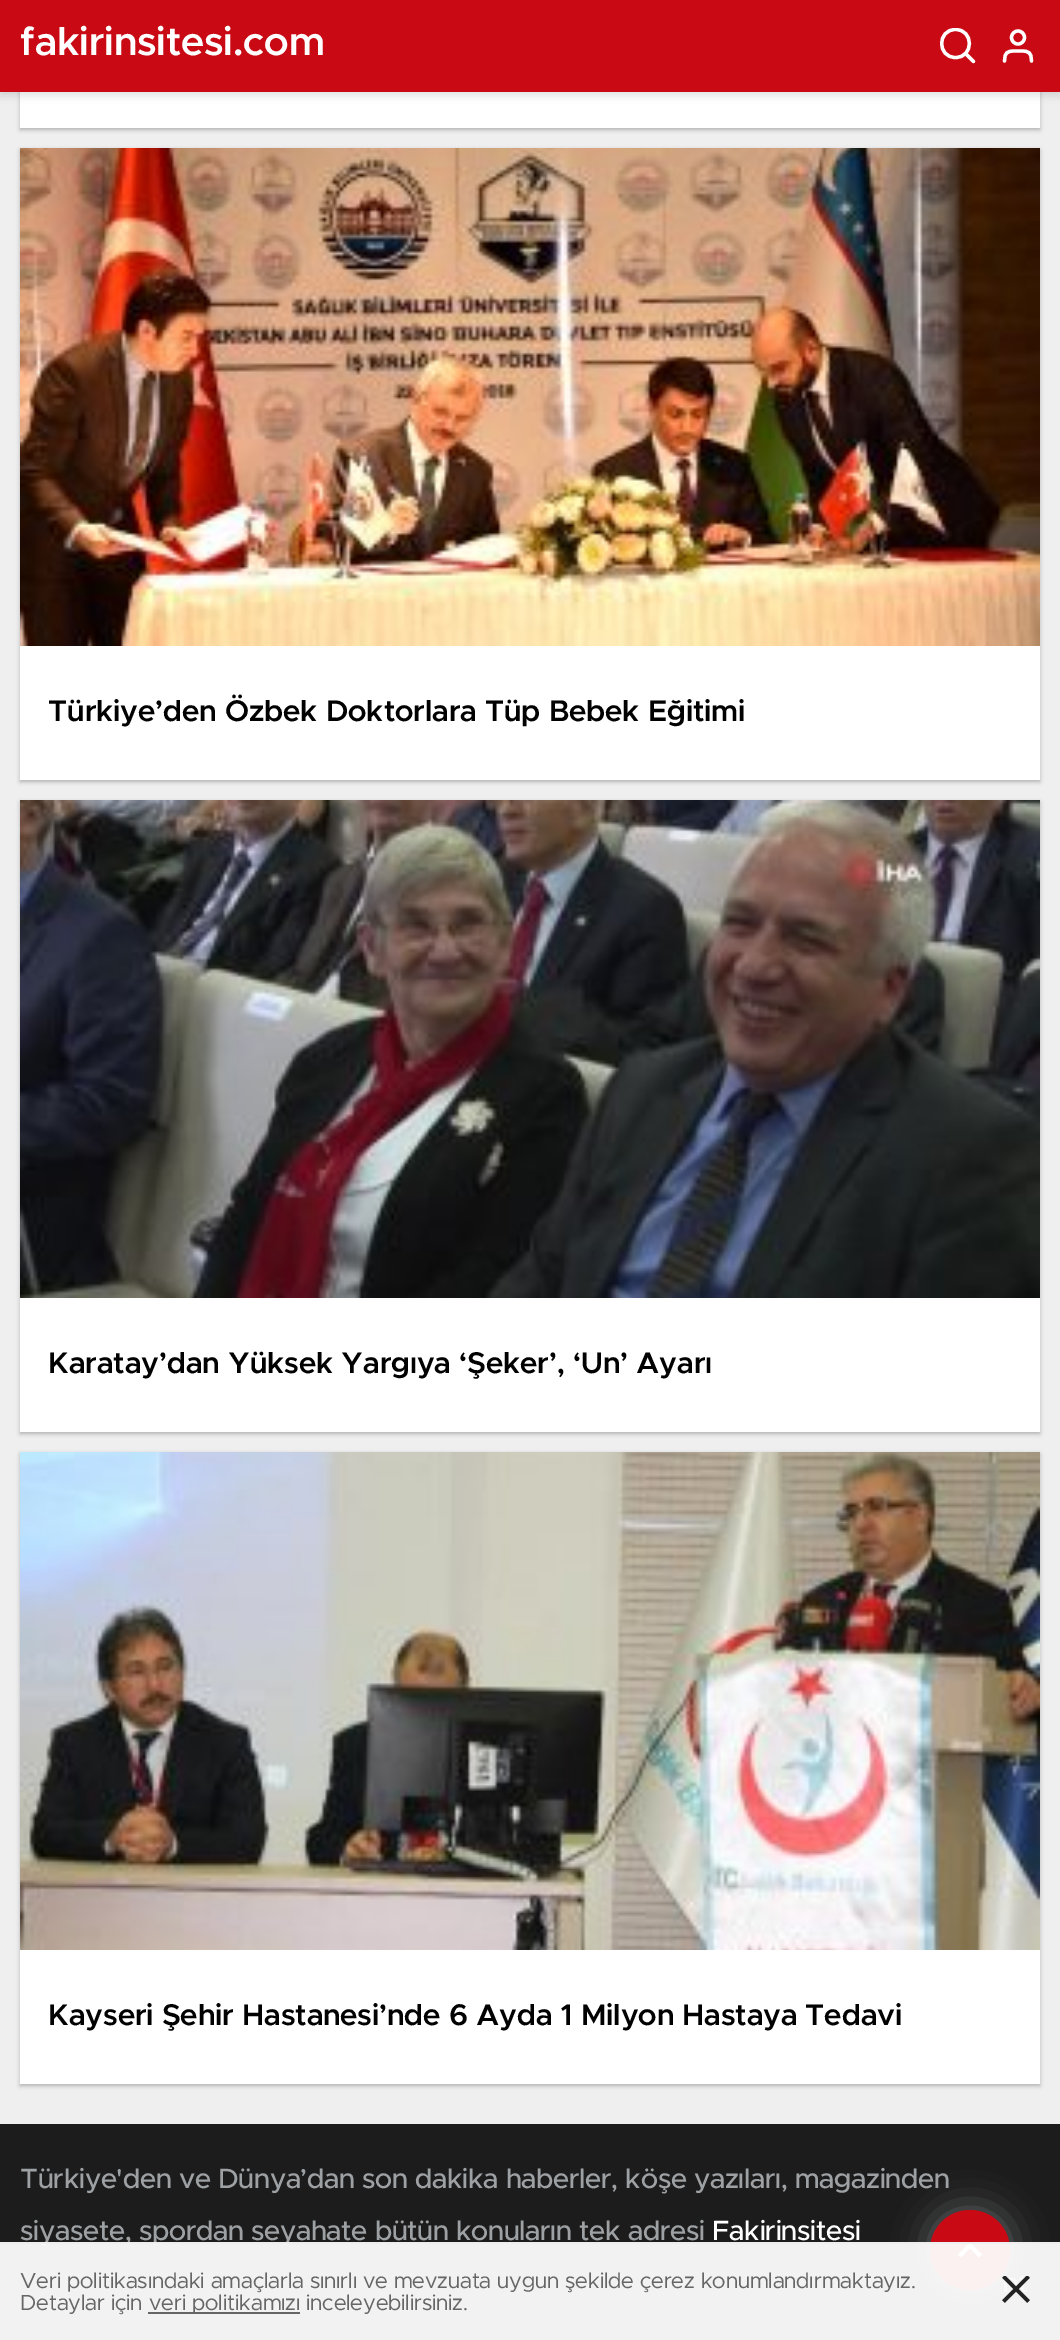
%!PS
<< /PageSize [1060 2340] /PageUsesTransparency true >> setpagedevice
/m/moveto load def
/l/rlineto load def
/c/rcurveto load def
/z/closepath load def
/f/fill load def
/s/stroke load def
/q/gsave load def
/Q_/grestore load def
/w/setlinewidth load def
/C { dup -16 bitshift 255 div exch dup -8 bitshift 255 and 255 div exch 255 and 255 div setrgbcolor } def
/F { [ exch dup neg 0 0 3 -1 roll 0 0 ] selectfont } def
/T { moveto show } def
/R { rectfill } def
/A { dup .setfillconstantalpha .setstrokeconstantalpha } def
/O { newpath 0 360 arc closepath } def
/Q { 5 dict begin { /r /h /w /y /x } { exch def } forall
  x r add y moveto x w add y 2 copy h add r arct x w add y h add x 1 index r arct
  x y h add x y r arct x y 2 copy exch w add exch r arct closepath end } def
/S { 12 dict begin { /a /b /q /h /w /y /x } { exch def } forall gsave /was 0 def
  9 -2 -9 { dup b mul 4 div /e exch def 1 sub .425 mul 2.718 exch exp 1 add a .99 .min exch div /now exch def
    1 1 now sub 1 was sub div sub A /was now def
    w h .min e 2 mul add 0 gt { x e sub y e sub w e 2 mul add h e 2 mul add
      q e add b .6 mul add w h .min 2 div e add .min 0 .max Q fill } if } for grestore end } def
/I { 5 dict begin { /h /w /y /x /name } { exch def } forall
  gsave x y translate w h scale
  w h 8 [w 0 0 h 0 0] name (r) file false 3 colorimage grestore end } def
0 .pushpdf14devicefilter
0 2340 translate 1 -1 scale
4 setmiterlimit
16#EFEFEF C
0 0 1060 2340 R
16#111519 C
20 -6 1020 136 0 2 .27 S
16#FFFFFF C
20 92 1020 36 R
16#111519 C
0 4 1060 92 0 4 .12 S
16#C90914 C
0 0 1060 92 R
/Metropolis-SemiBold 40 F
16#FFFFFF C
(fakirinsitesi.com) 20 55 T
q
940 28 36 36 rectclip
3.3 w
1 setlinecap
1 setlinejoin
955.5 57.5 m 18.5 0 18.5 -28 0 -28 c -18.5 0 -18.5 28 0 28 c z s
Q_
3.3 w
1 setlinecap
1 setlinejoin
965.5 53.5 m 8 8 l s
1031.5 61 m -.5 -4.5 l -1 -6.5 -8 -5.5 -13 -5.5 c -5 0 -12 -1 -13 5.5 c -.5 4.5 l s
0 setlinecap
0 setlinejoin
1018 37.5 6.5 O s
16#111519 C
20 150 1020 632 0 2 .27 S
16#FFFFFF C
20 646 1020 134 R
(1.rgb) 20 148 1020 498 I
/Metropolis-SemiBold 30 F
16#010101 C
(Türkiye’den Özbek Doktorlara Tüp Bebek Eğitimi) 48 721 T
16#111519 C
20 802 1020 632 0 2 .27 S
16#FFFFFF C
20 1298 1020 134 R
(2.rgb) 20 800 1020 498 I
16#010101 C
(Karatay’dan Yüksek Yargıya ‘Şeker’, ‘Un’ Ayarı) 48 1373 T
16#111519 C
20 1454 1020 632 0 2 .27 S
16#FFFFFF C
20 1950 1020 134 R
(3.rgb) 20 1452 1020 498 I
16#010101 C
(Kayseri Şehir Hastanesi’nde 6 Ayda 1 Milyon Hastaya Tedavi) 48 2025 T
16#1C1C1C C
0 2124 1060 216 R
/Metropolis-Medium 28 F
16#9DA1A4 C
20 2188 m -.2 0 (Türkiye'den ve Dünya’dan son dakika haberler, köşe yazıları, magazinden) ashow
20 2240 m -.2 0 (siyasete, spordan seyahate bütün konuların tek adresi) ashow
16#FFFFFF C
712 2240 m -.2 0 (Fakirinsitesi) ashow
16#9DA1A4 C
930 2210 80 80 40 18 .54 S
16#C90914 C
970 2250 40 O f
16#FFFFFF C
970 2242.5 m -12 12 l 3 3 l 9 -9.5 l 9 9.5 l 3 -3 l z f
0.94 A
0 2244 1060 96 R
1 A
16#EEEEEE C
0 2242 1060 2 R
/Metropolis-Regular 22 F
16#666666 C
(Veri politikasındaki amaçlarla sınırlı ve mevzuata uygun şekilde çerez konumlandırmaktayız.) 20 2288 T
(Detaylar için) 20 2310 T
148 2312 152 2 R
(veri politikamızı inceleyebilirsiniz.) 149 2310 T
(4.rgb) 1002 2276 28 27 I
.poppdf14devicefilter showpage
